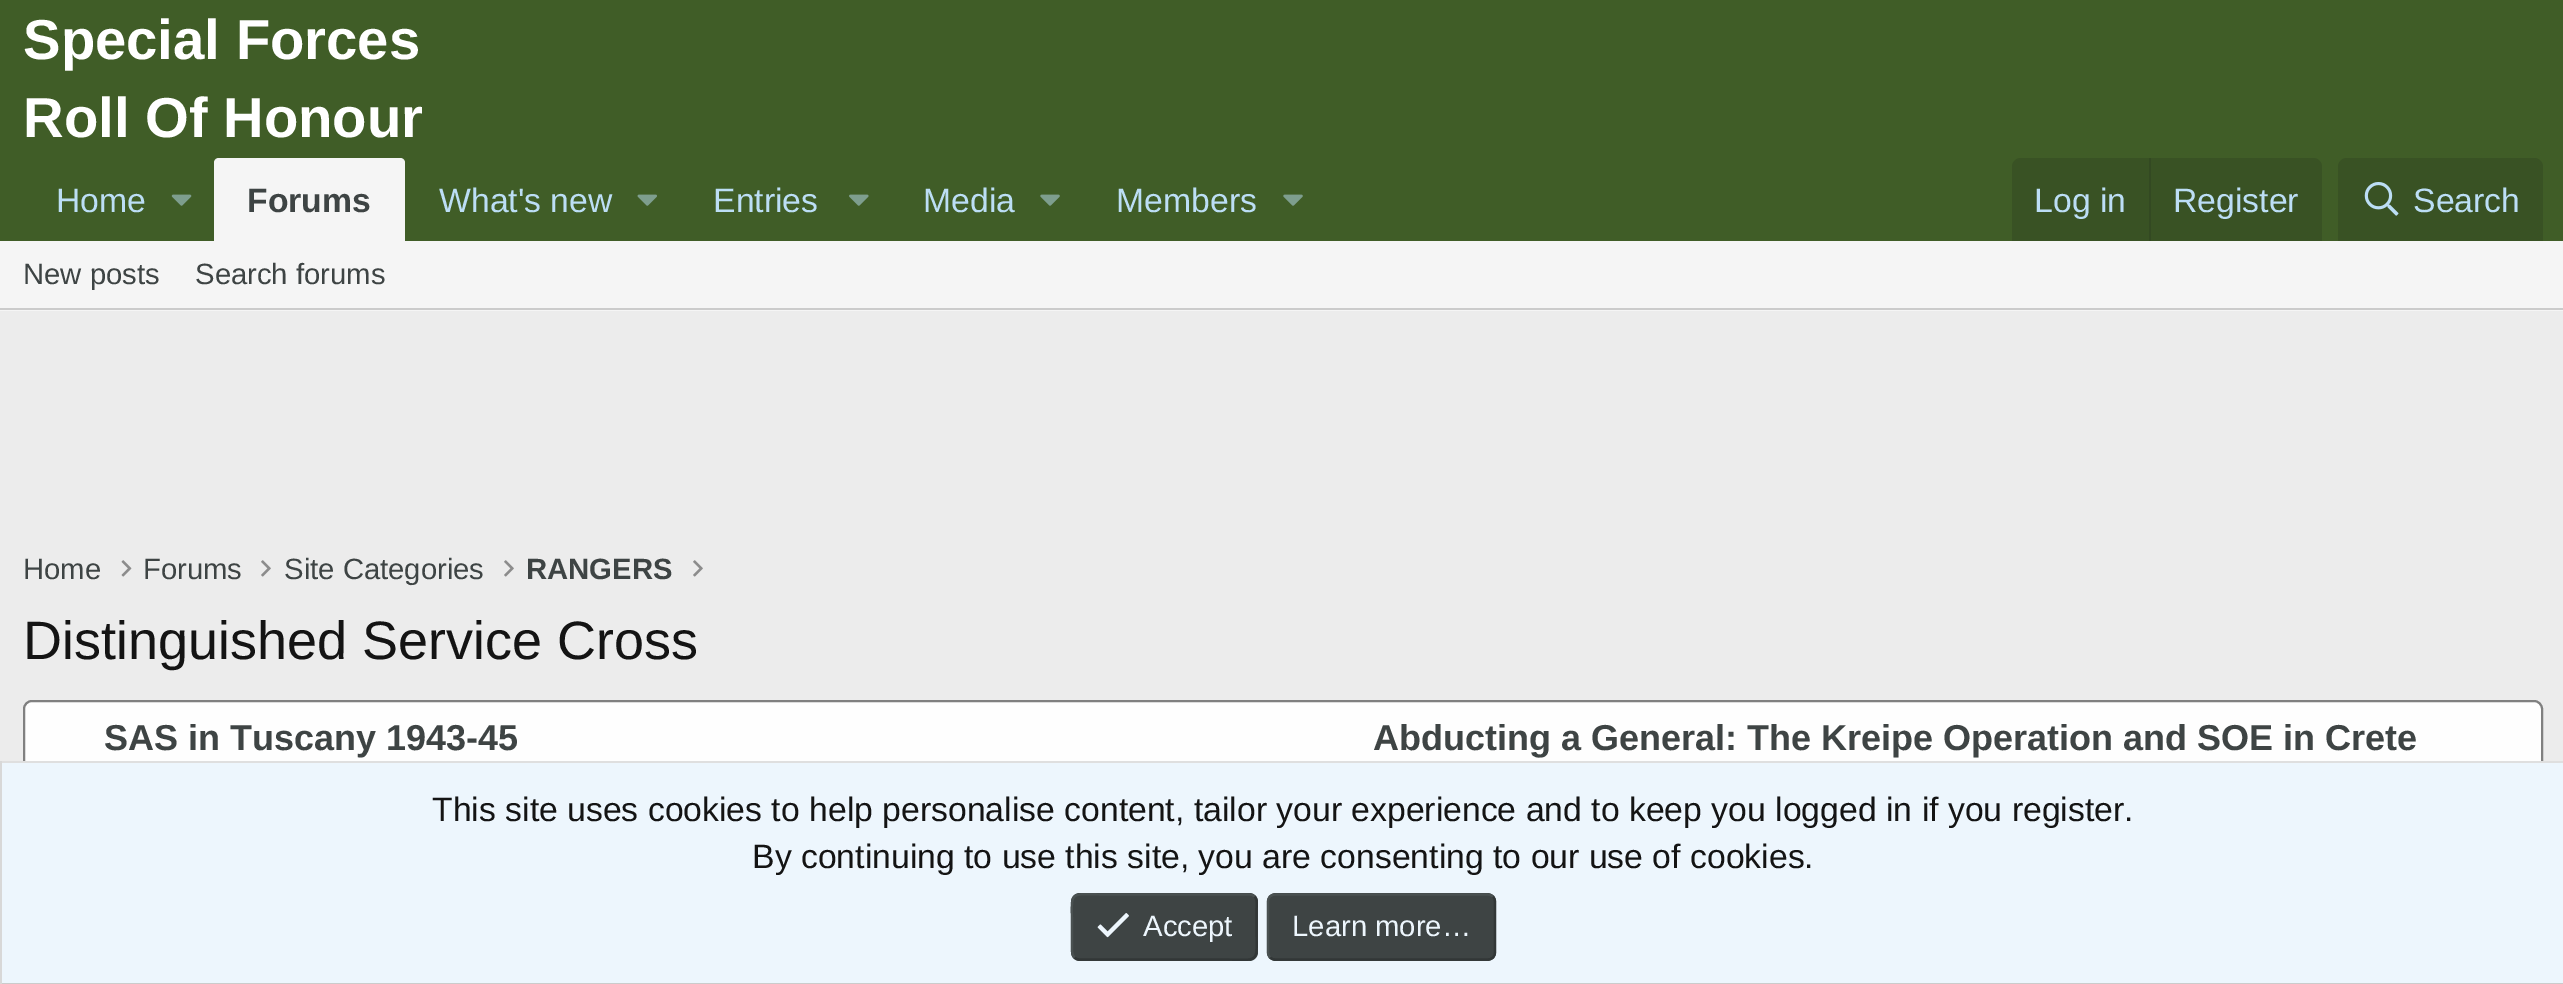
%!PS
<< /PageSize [2563 984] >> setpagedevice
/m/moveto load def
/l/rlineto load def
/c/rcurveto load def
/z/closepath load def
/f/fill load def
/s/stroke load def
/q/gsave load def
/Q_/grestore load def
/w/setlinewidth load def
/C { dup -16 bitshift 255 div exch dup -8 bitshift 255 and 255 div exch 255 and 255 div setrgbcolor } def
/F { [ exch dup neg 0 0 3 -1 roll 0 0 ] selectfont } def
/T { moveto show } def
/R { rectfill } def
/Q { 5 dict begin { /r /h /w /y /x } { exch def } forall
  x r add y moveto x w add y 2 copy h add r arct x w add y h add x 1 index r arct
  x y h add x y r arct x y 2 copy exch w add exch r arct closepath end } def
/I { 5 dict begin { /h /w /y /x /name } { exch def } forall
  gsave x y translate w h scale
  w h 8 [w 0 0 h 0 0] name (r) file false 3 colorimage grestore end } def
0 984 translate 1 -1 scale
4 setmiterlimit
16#ECECEC C
0 0 2563 984 R
16#405D27 C
0 0 2563 241 R
/LiberationSans-Bold 56.25 F
16#FFFFFF C
(Special Forces) 23 59 T
(Roll Of Honour) 23 137 T
/LiberationSans-Regular 33.75 F
16#BCDEF5 C
(Home) 56 212 T
(1.rgb) 171 194 21 12 I
16#F5F5F5 C
219 158 m 181 0 l 3 0 5 2 5 5 c 0 78 l -191 0 l 0 -78 l 0 -3 2 -5 5 -5 c z f
/LiberationSans-Bold 33.75 F
16#3E4444 C
(Forums) 247 212 T
/LiberationSans-Regular 33.75 F
16#BCDEF5 C
(What's new) 439 212 T
(2.rgb) 637 194 20 12 I
(Entries) 713 212 T
(3.rgb) 849 194 20 12 I
(Media) 923 212 T
(4.rgb) 1040 194 20 12 I
(Members) 1116 212 T
(4.rgb) 1283 194 20 12 I
16#395224 C
2021 158 m 292 0 l 5 0 9 4 9 9 c 0 74 l -310 0 l 0 -74 l 0 -5 4 -9 9 -9 c z f
16#BCDEF5 C
(Log in) 2034 212 T
16#334922 C
2149 158 2 83 R
16#BCDEF5 C
(Register) 2173 212 T
16#395224 C
2347 158 m 187 0 l 5 0 9 4 9 9 c 0 74 l -205 0 l 0 -74 l 0 -5 4 -9 9 -9 c z f
(5.rgb) 2364 182 35 34 I
16#BCDEF5 C
(Search) 2413 212 T
16#F5F5F5 C
0 241 2563 70 R
16#CBCBCB C
0 308 2563 2 R
/LiberationSans-Regular 29.25 F
16#3E4444 C
(New posts) 23 284 T
(Search forums) 195 284 T
(Home) 23 579 T
(6.rgb) 121 560 11 17 I
(Forums) 143 579 T
(7.rgb) 261 560 10 17 I
(Site Categories) 284 579 T
(7.rgb) 504 560 10 17 I
/LiberationSans-Bold 29.25 F
(RANGERS) 526 579 T
(7.rgb) 693 560 10 17 I
/LiberationSans-Regular 54 F
16#141414 C
(Distinguished Service Cross) 23 659 T
16#FEFEFE C
24 701 2518 135 8 Q q f Q_
16#808080 C
2 w
s
/LiberationSans-Bold 36 F
16#3E4444 C
(SAS in Tuscany 1943-45) 104 750 T
(Abducting a General: The Kreipe Operation and SOE in Crete) 1373 750 T
16#EDF6FD C
2 763 2561 220 R
16#DFDFDF C
0 761 2563 2 R
16#CBCBCB C
0 983 2563 1 R
16#D8D8D8 C
0 761 2 223 R
/LiberationSans-Regular 33.75 F
16#141414 C
(This site uses cookies to help personalise content, tailor your experience and to keep you logged in if you register.) 432 821 T
(By continuing to use this site, you are consenting to our use of cookies.) 752 868 T
16#3E4444 C
1071 893 187 68 9 Q f
16#323737 C
2.2 w
1254.5 896.5 m 3.5 3.5 2 9.5 2 14 c 0 16.5 l 0 38.5 5 32.5 -36 32.5 c -140.5 0 l -2 0 -4 -.5 -5.5 -2 c s
16#4A5151 C
1074.5 957.5 m -3.5 -3.5 -2.5 -9.5 -2.5 -14 c 0 -16.5 l 0 -38.5 -5 -32.5 36 -32.5 c 141 0 l 2 0 4 .5 5.5 2 c s
(8.rgb) 1097 913 32 25 I
/LiberationSans-Regular 29.25 F
16#EDF6FD C
(Accept) 1143 936 T
16#3E4444 C
1267 893 229 68 9 Q f
16#323737 C
1493 896.5 m 1.5 1.5 2 3.5 2 5.5 c 0 50 l 0 2 -.5 4 -2 5.5 c -1.5 1.5 -3.5 2 -6 2 c -211 0 l -2.5 0 -4.5 -.5 -6 -2 c s
16#4A5151 C
1270 957.5 m -1.5 -1.5 -2 -3.5 -2 -5.5 c 0 -50 l 0 -2 .5 -4 2 -5.5 c 1.5 -1.5 3.5 -2 6 -2 c 211 0 l 2.5 0 4.5 .5 6 2 c s
16#EDF6FD C
(Learn more…) 1292 936 T
showpage
